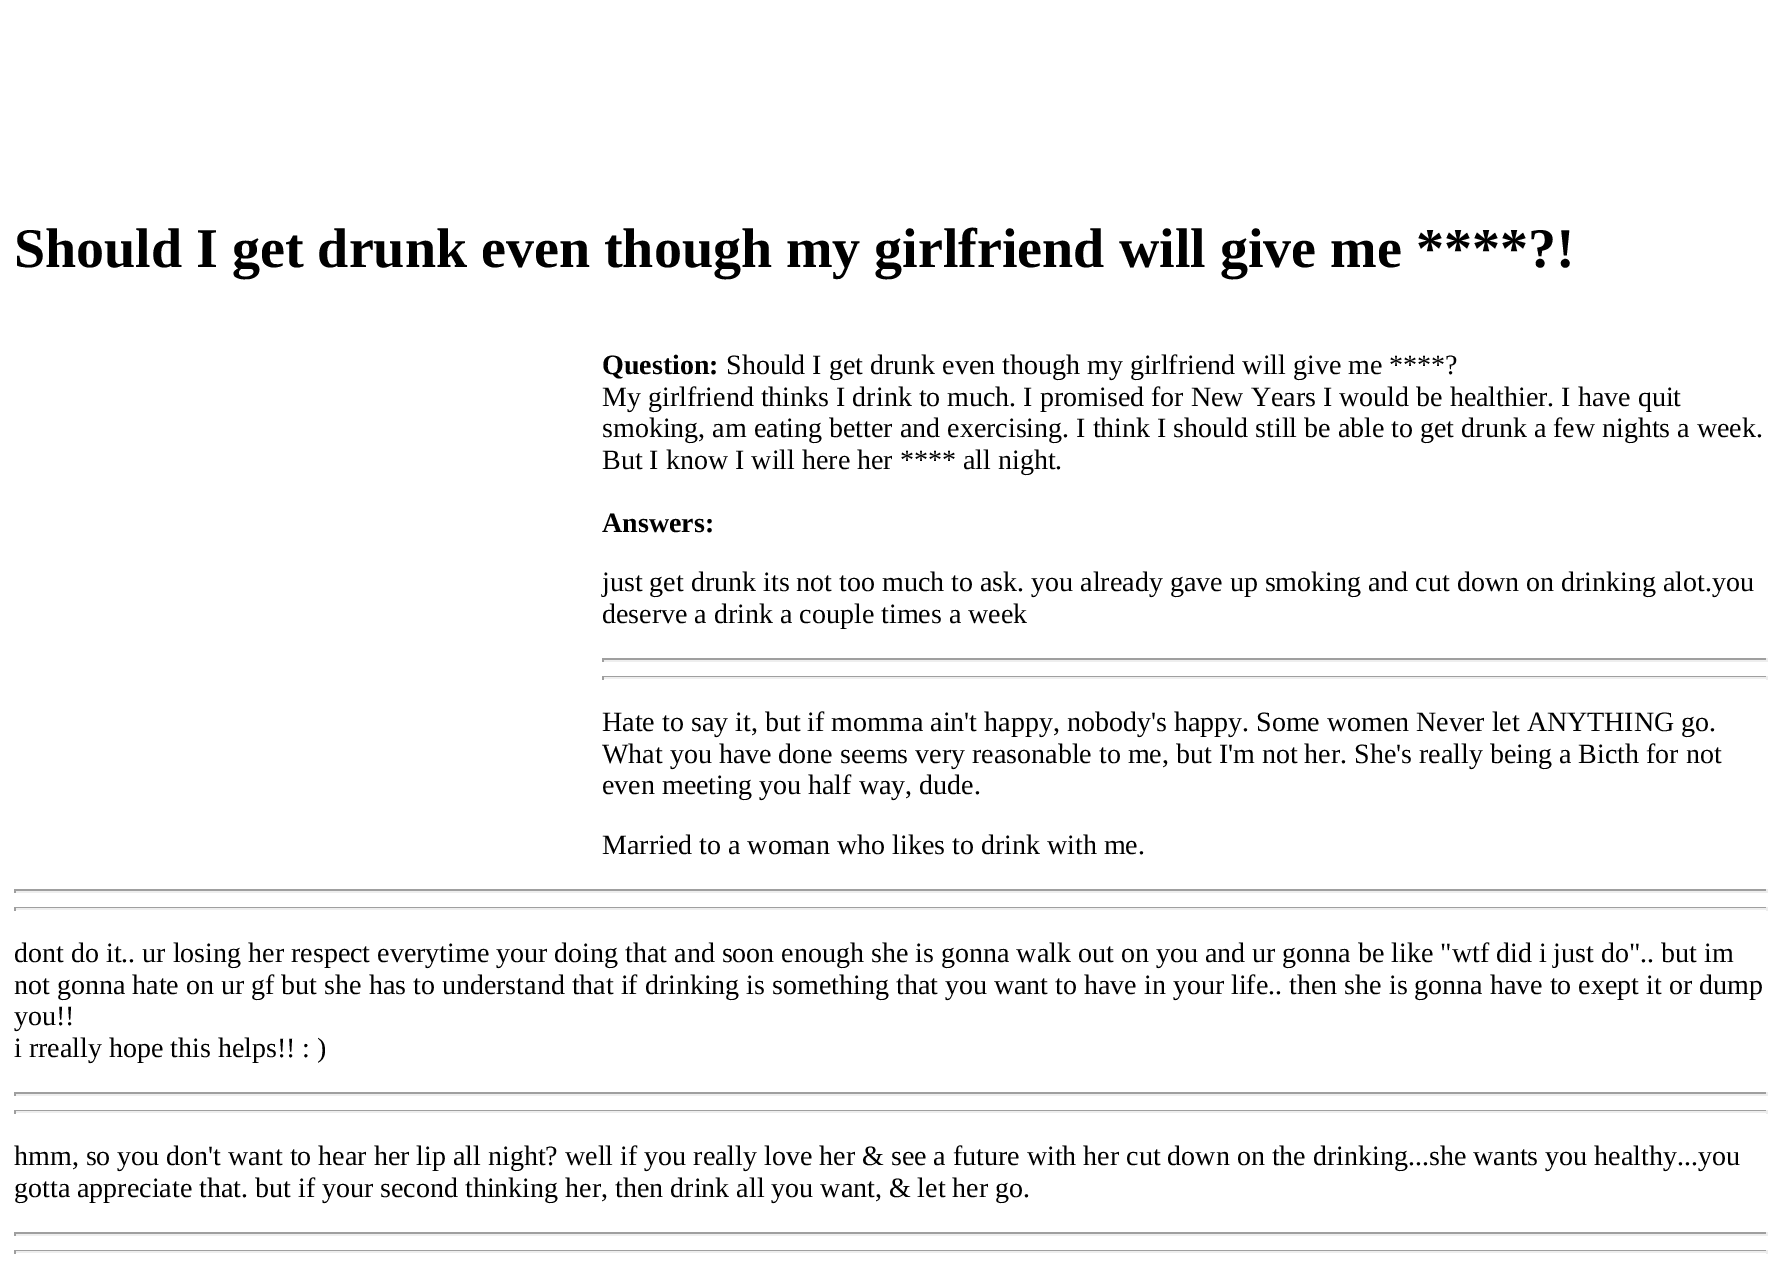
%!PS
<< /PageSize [1780 1288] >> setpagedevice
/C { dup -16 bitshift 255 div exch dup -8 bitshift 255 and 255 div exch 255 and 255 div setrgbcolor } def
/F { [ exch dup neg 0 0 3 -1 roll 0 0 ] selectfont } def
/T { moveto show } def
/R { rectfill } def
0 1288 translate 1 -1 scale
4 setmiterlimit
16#FFFFFF C
0 0 1780 1288 R
/LiberationSerif-Bold 56 F
16#000000 C
(Should I get drunk even though my girlfriend will give me ****?!) 14 267 T
/LiberationSerif-Bold 28 F
(Question:) 602 374 T
/LiberationSerif-Regular 28 F
(Should I get drunk even though my girlfriend will give me ****?) 726 374 T
(My girlfriend thinks I drink to much. I promised for New Years I would be healthier. I have quit) 602 406 T
(smoking, am eating better and exercising. I think I should still be able to get drunk a few nights a week.) 602 437 T
(But I know I will here her **** all night.) 602 469 T
/LiberationSerif-Bold 28 F
(Answers:) 602 532 T
/LiberationSerif-Regular 28 F
(just get drunk its not too much to ask. you already gave up smoking and cut down on drinking alot.you) 602 591 T
(deserve a drink a couple times a week) 602 623 T
16#9F9F9F C
602 658 1166 2 R
16#EEEEEE C
1766 658 2 4 R
602 660 1166 2 R
16#9F9F9F C
602 658 2 4 R
602 676 1166 1 R
16#EEEEEE C
1766 676 2 4 R
602 677 1166 2 R
16#9F9F9F C
602 676 2 4 R
16#000000 C
(Hate to say it, but if momma ain't happy, nobody's happy. Some women Never let ANYTHING go.) 602 731 T
(What you have done seems very reasonable to me, but I'm not her. She's really being a Bicth for not) 602 763 T
(even meeting you half way, dude.) 602 794 T
(Married to a woman who likes to drink with me.) 602 854 T
16#9F9F9F C
14 889 1754 2 R
16#EEEEEE C
1766 889 2 4 R
14 891 1754 2 R
16#9F9F9F C
14 889 2 4 R
14 907 1754 1 R
16#EEEEEE C
1766 907 2 4 R
14 908 1754 2 R
16#9F9F9F C
14 907 2 4 R
16#000000 C
(dont do it.. ur losing her respect everytime your doing that and soon enough she is gonna walk out on you and ur gonna be like "wtf did i just do".. but im) 14 962 T
(not gonna hate on ur gf but she has to understand that if drinking is something that you want to have in your life.. then she is gonna have to exept it or dump) 14 994 T
(you!!) 14 1025 T
(i rreally hope this helps!! : \)) 14 1057 T
16#9F9F9F C
14 1092 1754 2 R
16#EEEEEE C
1766 1092 2 4 R
14 1094 1754 2 R
16#9F9F9F C
14 1092 2 4 R
14 1110 1754 1 R
16#EEEEEE C
1766 1110 2 4 R
14 1111 1754 2 R
16#9F9F9F C
14 1110 2 4 R
16#000000 C
(hmm, so you don't want to hear her lip all night? well if you really love her & see a future with her cut down on the drinking...she wants you healthy...you) 14 1165 T
(gotta appreciate that. but if your second thinking her, then drink all you want, & let her go.) 14 1197 T
16#9F9F9F C
14 1232 1754 2 R
16#EEEEEE C
1766 1232 2 4 R
14 1234 1754 2 R
16#9F9F9F C
14 1232 2 4 R
14 1250 1754 1 R
16#EEEEEE C
1766 1250 2 4 R
14 1251 1754 2 R
16#9F9F9F C
14 1250 2 4 R
showpage
